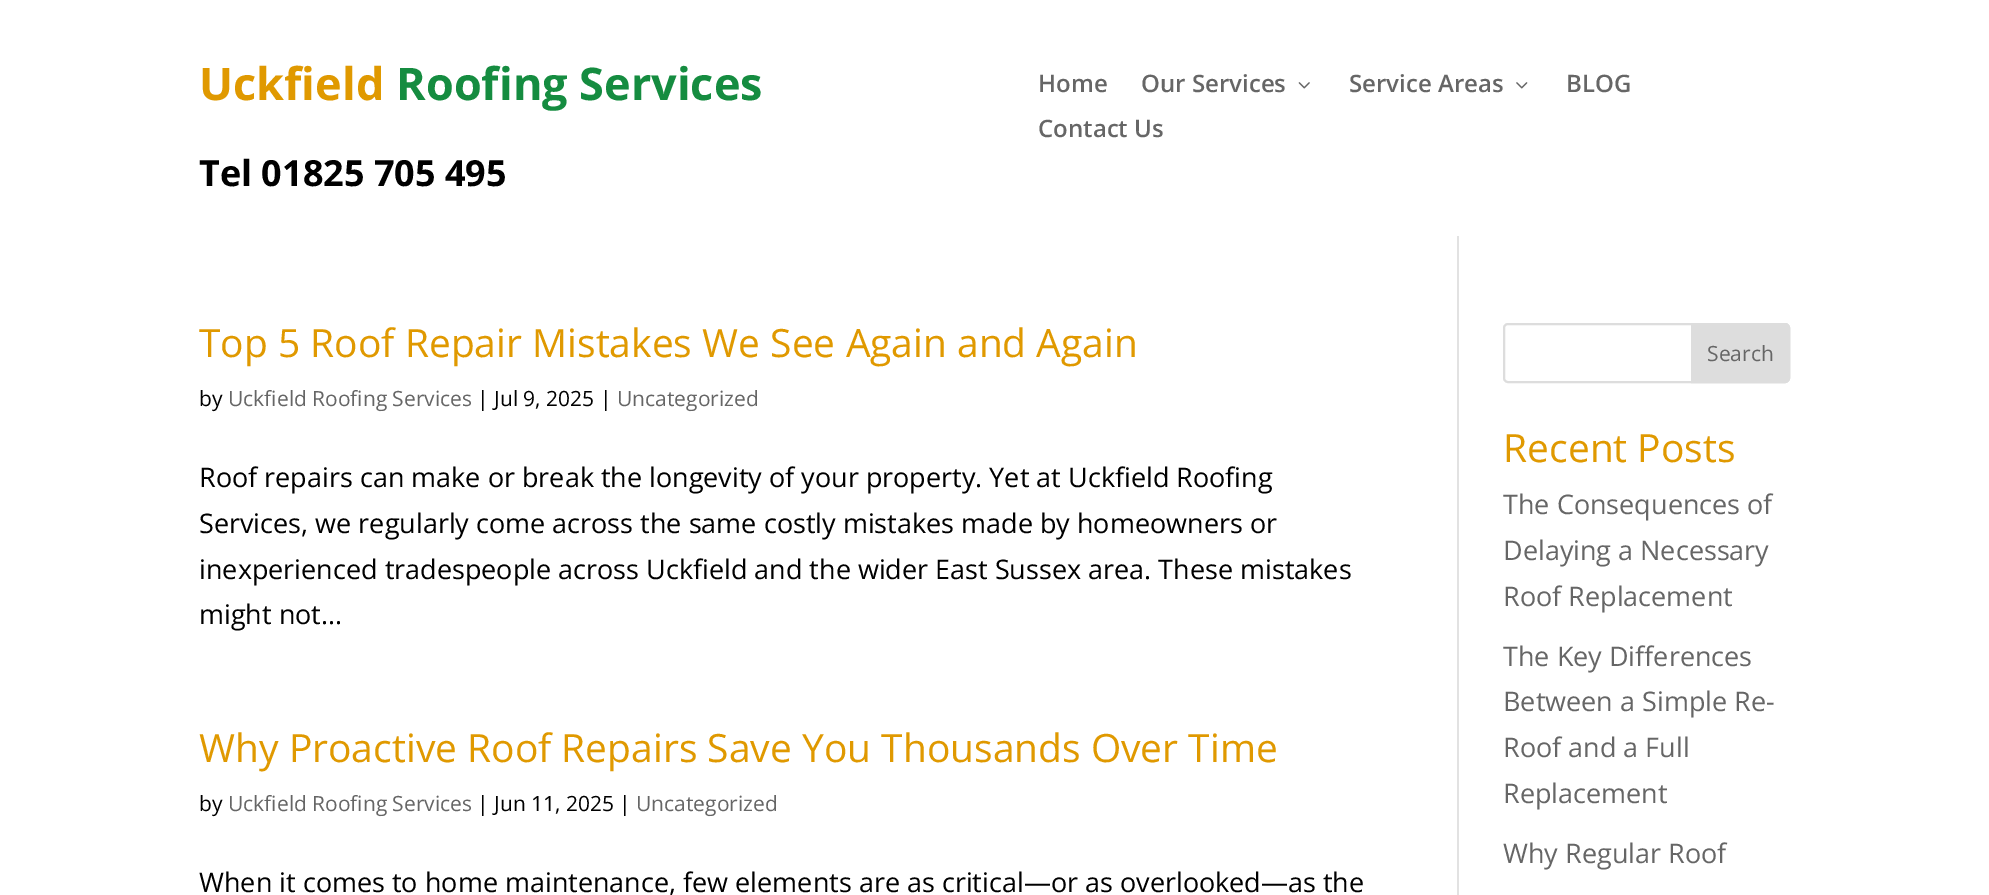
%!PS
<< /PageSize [1989 895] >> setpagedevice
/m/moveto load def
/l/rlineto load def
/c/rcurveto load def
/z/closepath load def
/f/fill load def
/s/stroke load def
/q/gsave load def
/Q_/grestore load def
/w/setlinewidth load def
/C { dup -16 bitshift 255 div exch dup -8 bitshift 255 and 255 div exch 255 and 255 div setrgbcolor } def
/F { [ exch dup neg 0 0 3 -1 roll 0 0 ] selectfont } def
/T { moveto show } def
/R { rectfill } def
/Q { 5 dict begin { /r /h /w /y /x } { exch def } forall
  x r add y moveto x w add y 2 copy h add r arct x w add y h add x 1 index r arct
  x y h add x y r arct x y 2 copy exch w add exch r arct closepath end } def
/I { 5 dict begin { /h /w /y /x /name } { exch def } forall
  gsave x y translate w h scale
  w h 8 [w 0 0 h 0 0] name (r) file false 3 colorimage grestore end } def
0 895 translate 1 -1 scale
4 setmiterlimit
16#FFFFFF C
0 0 1989 895 R
/OpenSans-Bold 45 F
16#E09900 C
(Uckfield) 199 100 T
16#158C40 C
(Roofing Services) 396 100 T
/OpenSans-Bold 36 F
16#000000 C
(Tel 01825 705 495) 199 186 T
/OpenSans-SemiBold 24 F
16#666666 C
(Home) 1038 92 T
(Our Services) 1141 92 T
(1.rgb) 1298 82 12 7 I
(Service Areas) 1349 92 T
(2.rgb) 1516 82 12 7 I
(BLOG) 1566 92 T
(Contact Us) 1038 137 T
16#E2E2E2 C
1457 236 2 659 R
/OpenSans-Regular 39 F
16#E09900 C
(Top 5 Roof Repair Mistakes We See Again and Again) 199 357 T
/OpenSans-Regular 21 F
16#000000 C
(by) 199 406 T
16#666666 C
(Uckfield Roofing Services) 228 406 T
16#000000 C
(| Jul 9, 2025 |) 477 406 T
16#666666 C
(Uncategorized) 617 406 T
/OpenSans-Regular 27 F
16#000000 C
(Roof repairs can make or break the longevity of your property. Yet at Uckfield Roofing) 199 487 T
(Services, we regularly come across the same costly mistakes made by homeowners or) 199 533 T
(inexperienced tradespeople across Uckfield and the wider East Sussex area. These mistakes) 199 579 T
(might not...) 199 624 T
/OpenSans-Regular 39 F
16#E09900 C
(Why Proactive Roof Repairs Save You Thousands Over Time) 199 762 T
/OpenSans-Regular 21 F
16#000000 C
(by) 199 811 T
16#666666 C
(Uckfield Roofing Services) 228 811 T
16#000000 C
(| Jun 11, 2025 |) 477 811 T
16#666666 C
(Uncategorized) 636 811 T
/OpenSans-Regular 27 F
16#000000 C
(When it comes to home maintenance, few elements are as critical—or as overlooked—as the) 199 892 T
16#DDDDDD C
2 w
1504 324 285 58 4 Q s
1692 324 m 93 0 l 2 0 4 2 4 4 c 0 50 l 0 2 -2 4 -4 4 c -93 0 l z q f Q_
s
/OpenSans-Regular 21 F
16#666666 C
(Search) 1707 361 T
/OpenSans-Regular 39 F
16#E09900 C
(Recent Posts) 1503 462 T
/OpenSans-Regular 27 F
16#666666 C
(The Consequences of) 1503 514 T
(Delaying a Necessary) 1503 560 T
(Roof Replacement) 1503 606 T
(The Key Differences) 1503 666 T
(Between a Simple Re-) 1503 711 T
(Roof and a Full) 1503 757 T
(Replacement) 1503 803 T
(Why Regular Roof) 1503 863 T
showpage
